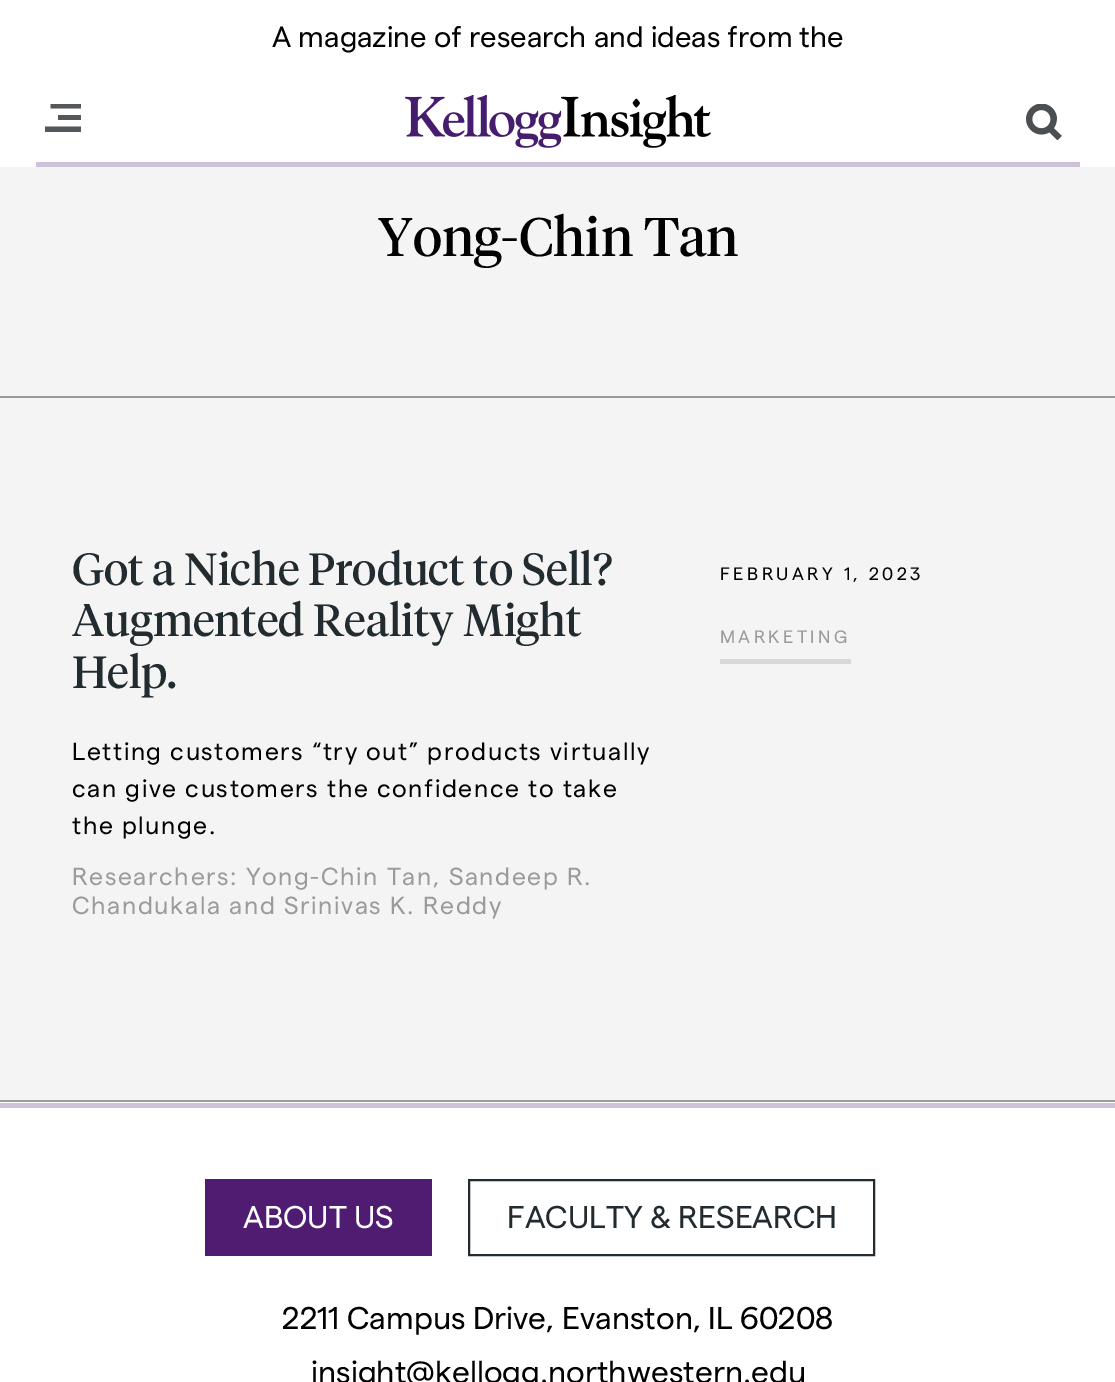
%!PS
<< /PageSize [1115 1382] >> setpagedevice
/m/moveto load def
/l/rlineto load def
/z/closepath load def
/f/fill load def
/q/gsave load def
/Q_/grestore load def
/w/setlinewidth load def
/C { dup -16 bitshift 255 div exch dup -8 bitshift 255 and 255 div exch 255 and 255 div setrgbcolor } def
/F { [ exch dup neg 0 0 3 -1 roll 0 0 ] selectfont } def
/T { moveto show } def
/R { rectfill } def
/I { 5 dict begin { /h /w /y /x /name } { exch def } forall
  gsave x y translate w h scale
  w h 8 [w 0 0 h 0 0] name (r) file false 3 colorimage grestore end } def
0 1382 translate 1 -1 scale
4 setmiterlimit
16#FFFFFF C
0 0 1115 1382 R
/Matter-Regular 29.25 F
16#000000 C
(A magazine of research and ideas from the) 272 47 T
16#F4F4F4 C
0 167 1115 229 R
16#9B9B9B C
0 396 1115 2 R
/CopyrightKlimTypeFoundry-Regular 54 F
16#000000 C
(Yong-Chin Tan) 378 256 T
16#F4F4F4 C
0 398 1115 702 R
16#9B9B9B C
0 1100 1115 2 R
/CopyrightKlimTypeFoundry-Regular 45 F
16#222B2F C
(Got a Niche Product to Sell?) 72 585 T
(Augmented Reality Might) 72 636 T
(Help.) 72 688 T
/Matter-Regular 24.75 F
16#000000 C
72 760 m 1.6 0 (Letting customers “try out” products virtually) ashow
72 797 m 1.6 0 (can give customers the confidence to take) ashow
72 834 m 1.6 0 (the plunge.) ashow
16#9B9B9B C
72 885 m 1.6 0 (Researchers: Yong-Chin Tan, Sandeep R.) ashow
72 914 m 1.6 0 (Chandukala and Srinivas K. Reddy) ashow
/Matter-Regular 18 F
16#000000 C
720 580 m 3.4 0 (FEBRUARY 1, 2023) ashow
16#D8D8D8 C
720 659 131 5 R
16#9B9B9B C
720 643 m 3.4 0 (MARKETING) ashow
16#CDC2D8 C
36 162 1044 5 R
q
45 104 36 29 rectclip
16#55585A C
45 132 m 36 0 l 0 -5.5 l -36 0 l z 58 120 m 23 0 l 0 -5 l -23 0 l z 50.5 108.5 m 30.5 0 l 0 -5 l -30.5 0 l z f
Q_
(1.rgb) 405 95 306 53 I
(2.rgb) 1026 104 36 36 I
0 1103 1115 5 R
16#501C72 C
205 1179 227 77 R
/Matter-Regular 31.5 F
16#FFFFFF C
(ABOUT US) 243 1228 T
16#222B2F C
2 w
469 1180 405 75 rectstroke
(FACULTY & RESEARCH) 507 1228 T
16#000000 C
(2211 Campus Drive, Evanston, IL 60208) 282 1329 T
(insight@kellogg.northwestern.edu) 311 1383 T
showpage
